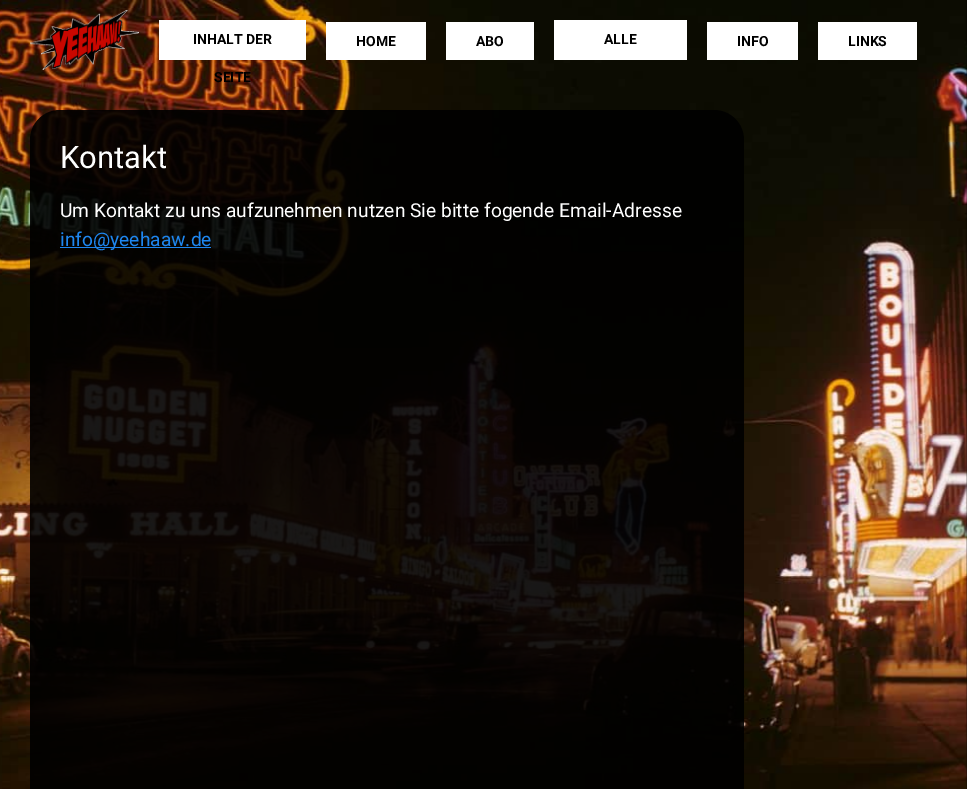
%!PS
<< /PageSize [967 789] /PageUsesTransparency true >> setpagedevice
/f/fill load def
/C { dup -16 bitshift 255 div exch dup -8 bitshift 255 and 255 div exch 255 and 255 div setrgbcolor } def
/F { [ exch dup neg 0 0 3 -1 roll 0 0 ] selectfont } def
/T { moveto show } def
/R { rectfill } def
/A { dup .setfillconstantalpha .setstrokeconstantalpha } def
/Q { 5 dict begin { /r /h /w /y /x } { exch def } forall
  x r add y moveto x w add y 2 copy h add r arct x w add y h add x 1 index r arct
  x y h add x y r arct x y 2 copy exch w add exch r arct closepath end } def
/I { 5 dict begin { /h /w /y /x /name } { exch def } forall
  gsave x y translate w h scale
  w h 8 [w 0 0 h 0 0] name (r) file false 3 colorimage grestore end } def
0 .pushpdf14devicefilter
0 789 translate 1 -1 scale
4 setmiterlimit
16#FFFFFF C
0 0 967 789 R
(1.rgb) 0 0 967 789 I
(2.rgb) 30 10 109 60 I
159 20 147 40 R
/Roboto-Bold 14 F
16#000000 C
(INHALT DER) 193 44 T
(SEITE) 214 82 T
16#FFFFFF C
326 22 100 38 R
16#000000 C
(HOME) 356 46 T
16#FFFFFF C
446 22 88 38 R
16#000000 C
(ABO) 476 46 T
16#FFFFFF C
554 20 133 40 R
16#000000 C
(ALLE) 604 44 T
16#FFFFFF C
707 22 91 38 R
16#000000 C
(INFO) 737 46 T
16#FFFFFF C
818 22 99 38 R
16#000000 C
(LINKS) 848 46 T
0.9 A
30 110 714 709 30 Q f
/Roboto-Regular 31 F
1 A
16#FFFFFF C
(Kontakt) 60 168 T
/Roboto-Regular 19.2 F
(Um Kontakt zu uns aufzunehmen nutzen Sie bitte fogende Email-Adresse) 60 217 T
16#1E87F0 C
60 247 151 1 R
(info@yeehaaw.de) 60 246 T
.poppdf14devicefilter showpage
